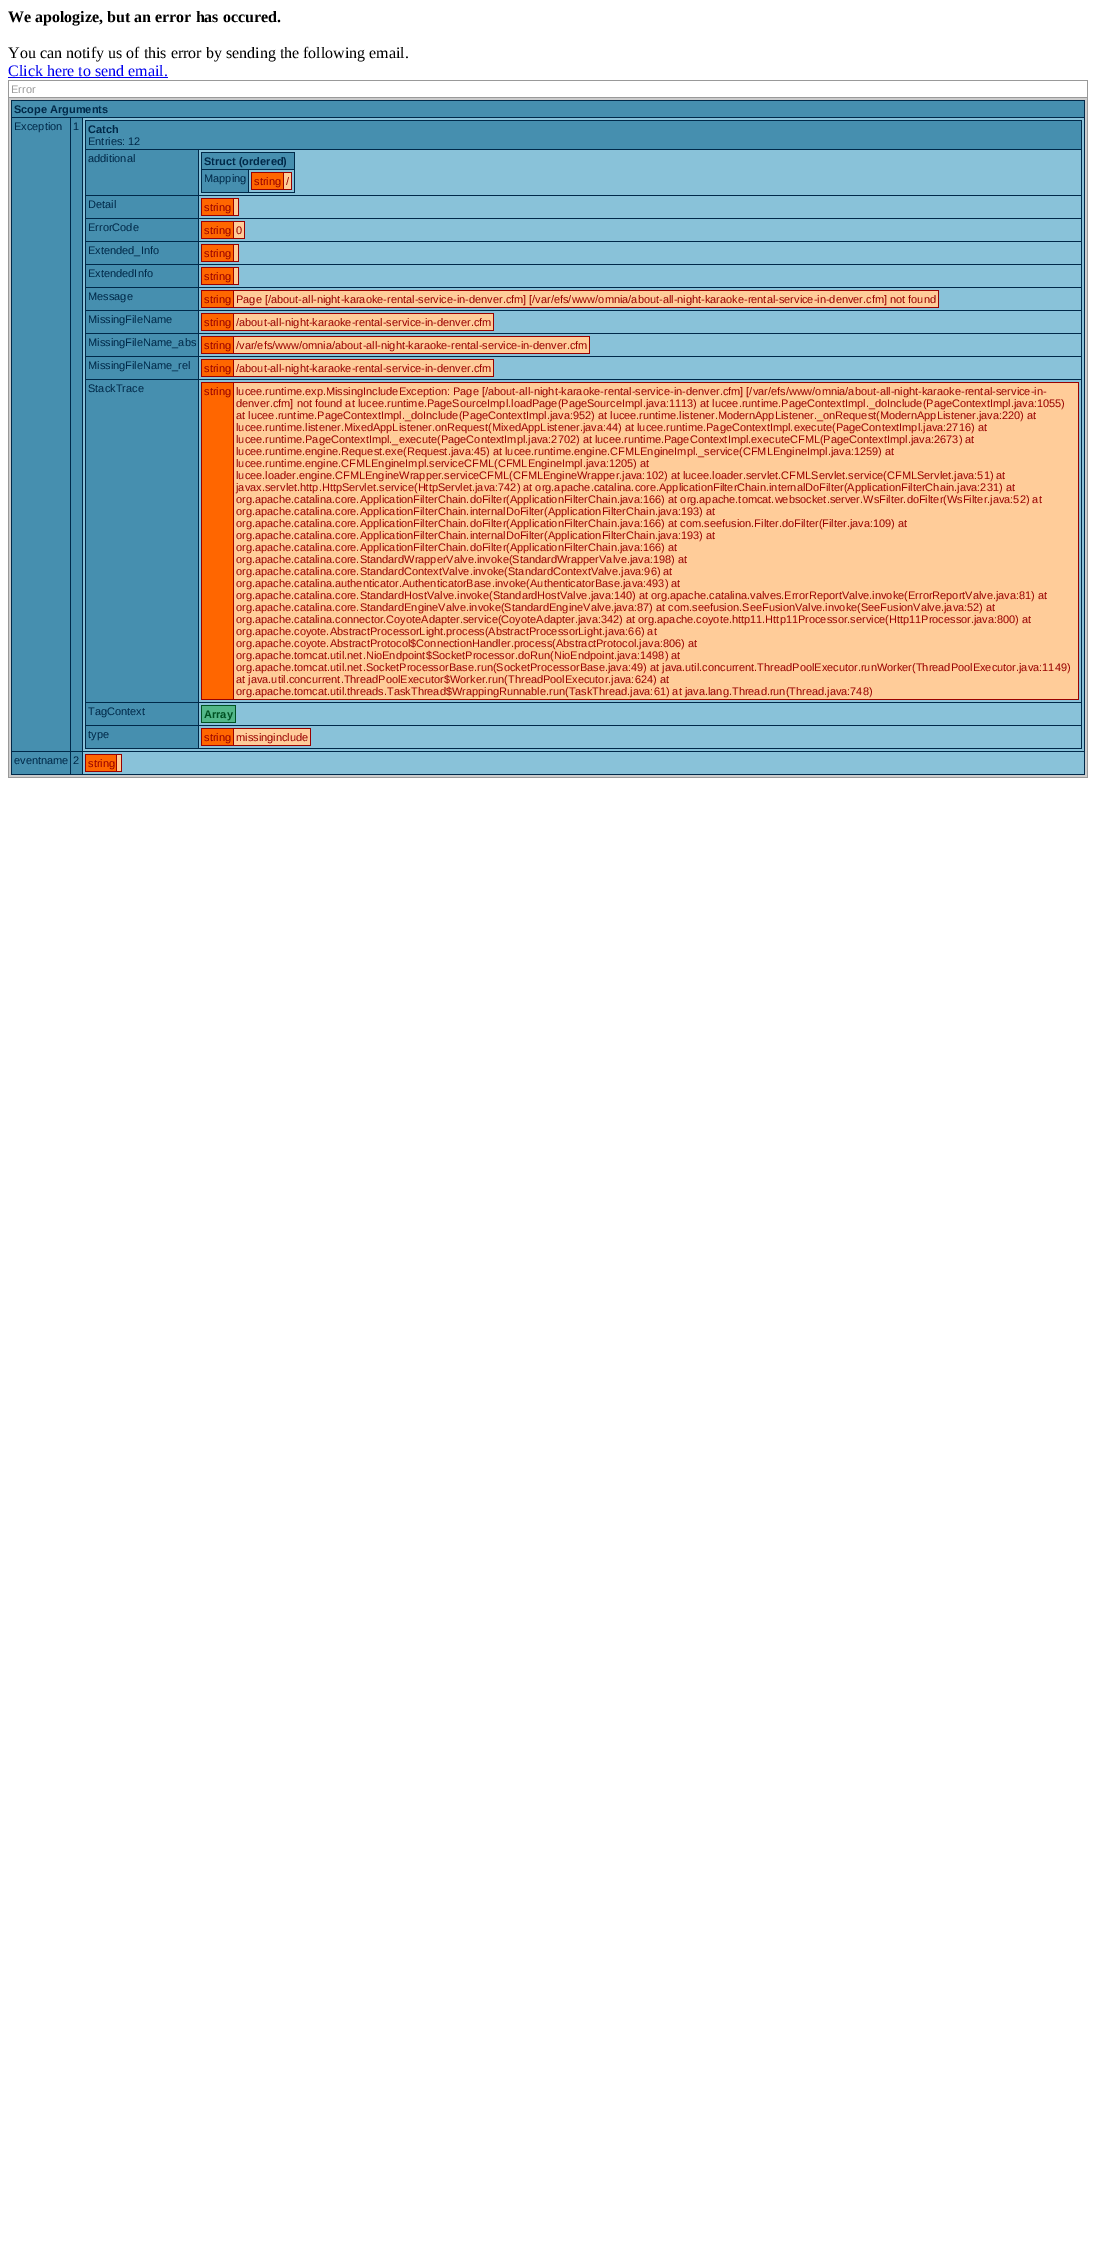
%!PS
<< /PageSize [1096 2260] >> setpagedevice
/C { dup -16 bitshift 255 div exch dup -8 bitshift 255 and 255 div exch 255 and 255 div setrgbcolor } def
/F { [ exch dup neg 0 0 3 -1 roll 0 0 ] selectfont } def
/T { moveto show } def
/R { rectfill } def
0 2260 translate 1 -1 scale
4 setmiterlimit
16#FFFFFF C
0 0 1096 2260 R
/LiberationSerif-Bold 16 F
16#000000 C
(We apologize, but an error has occured.) 8 22 T
/LiberationSerif-Regular 16 F
(You can notify us of this error by sending the following email.) 8 58 T
16#0000EE C
(Click here to send email.) 8 76 T
8 77 160 1 R
16#999999 C
8 80 1080 1 R
8 97 1080 1 R
1087 97 1 681 R
1087 80 1 18 R
8 777 1080 1 R
8 97 1 681 R
8 80 1 18 R
/LiberationSans-Regular 11 F
(Error) 11 93 T
16#CCCCCC C
9 98 1078 679 R
16#468FAF C
12 101 1072 16 R
16#002949 C
11 100 1074 1 R
82 117 1003 1 R
82 751 1003 1 R
1084 751 1 24 R
1084 117 1 635 R
1084 100 1 18 R
82 774 1003 1 R
82 751 1 24 R
70 751 13 1 R
82 117 1 635 R
70 117 13 1 R
70 774 13 1 R
70 751 1 24 R
11 751 60 1 R
70 117 1 635 R
11 117 60 1 R
11 774 60 1 R
11 751 1 24 R
11 117 1 635 R
11 100 1 18 R
/LiberationSans-Bold 11 F
(Scope Arguments) 14 113 T
16#468FAF C
12 118 58 633 R
/LiberationSans-Regular 11 F
16#002949 C
(Exception) 14 130 T
16#468FAF C
71 118 11 633 R
16#002949 C
(1) 73 130 T
16#89C2D9 C
83 118 1001 633 R
16#468FAF C
86 121 995 28 R
16#002949 C
85 120 997 1 R
198 149 884 1 R
198 195 884 1 R
198 218 884 1 R
198 241 884 1 R
198 264 884 1 R
198 287 884 1 R
198 310 884 1 R
198 333 884 1 R
198 356 884 1 R
198 379 884 1 R
198 702 884 1 R
198 725 884 1 R
1081 725 1 24 R
1081 702 1 24 R
1081 379 1 324 R
1081 356 1 24 R
1081 333 1 24 R
1081 310 1 24 R
1081 287 1 24 R
1081 264 1 24 R
1081 241 1 24 R
1081 218 1 24 R
1081 195 1 24 R
1081 149 1 47 R
1081 120 1 30 R
198 748 884 1 R
198 725 1 24 R
85 725 114 1 R
198 702 1 24 R
85 702 114 1 R
198 379 1 324 R
85 379 114 1 R
198 356 1 24 R
85 356 114 1 R
198 333 1 24 R
85 333 114 1 R
198 310 1 24 R
85 310 114 1 R
198 287 1 24 R
85 287 114 1 R
198 264 1 24 R
85 264 114 1 R
198 241 1 24 R
85 241 114 1 R
198 218 1 24 R
85 218 114 1 R
198 195 1 24 R
85 195 114 1 R
198 149 1 47 R
85 149 114 1 R
85 748 114 1 R
85 725 1 24 R
85 702 1 24 R
85 379 1 324 R
85 356 1 24 R
85 333 1 24 R
85 310 1 24 R
85 287 1 24 R
85 264 1 24 R
85 241 1 24 R
85 218 1 24 R
85 195 1 24 R
85 149 1 47 R
85 120 1 30 R
/LiberationSans-Bold 11 F
(Catch) 88 133 T
/LiberationSans-Regular 11 F
(Entries: 12) 88 145 T
16#468FAF C
86 150 112 45 R
16#002949 C
(additional) 88 162 T
16#468FAF C
202 153 92 16 R
16#002949 C
201 152 94 1 R
248 169 47 1 R
294 169 1 24 R
294 152 1 18 R
248 192 47 1 R
248 169 1 24 R
201 169 48 1 R
201 192 48 1 R
201 169 1 24 R
201 152 1 18 R
/LiberationSans-Bold 11 F
(Struct \(ordered\)) 204 165 T
16#468FAF C
202 170 46 22 R
/LiberationSans-Regular 11 F
16#002949 C
(Mapping) 204 182 T
16#FF6600 C
252 173 31 16 R
16#990000 C
283 172 9 1 R
16#FFCC99 C
284 173 7 17 R
16#990000 C
291 172 1 18 R
283 189 9 1 R
283 172 1 18 R
251 172 33 1 R
251 189 33 1 R
251 172 1 18 R
(string) 254 185 T
(/) 286 185 T
16#468FAF C
86 196 112 22 R
16#002949 C
(Detail) 88 208 T
16#FF6600 C
202 199 31 16 R
16#990000 C
233 198 6 1 R
16#FFCC99 C
234 199 4 17 R
16#990000 C
238 198 1 18 R
233 215 6 1 R
233 198 1 18 R
201 198 33 1 R
201 215 33 1 R
201 198 1 18 R
(string) 204 211 T
16#468FAF C
86 219 112 22 R
16#002949 C
(ErrorCode) 88 231 T
16#FF6600 C
202 222 31 16 R
16#990000 C
233 221 12 1 R
244 221 1 18 R
233 238 12 1 R
233 221 1 18 R
201 221 33 1 R
201 238 33 1 R
201 221 1 18 R
(string) 204 234 T
16#FFCC99 C
234 222 10 16 R
16#990000 C
(0) 236 234 T
16#468FAF C
86 242 112 22 R
16#002949 C
(Extended_Info) 88 254 T
16#FF6600 C
202 245 31 16 R
16#990000 C
233 244 6 1 R
16#FFCC99 C
234 245 4 17 R
16#990000 C
238 244 1 18 R
233 261 6 1 R
233 244 1 18 R
201 244 33 1 R
201 261 33 1 R
201 244 1 18 R
(string) 204 257 T
16#468FAF C
86 265 112 22 R
16#002949 C
(ExtendedInfo) 88 277 T
16#FF6600 C
202 268 31 16 R
16#990000 C
233 267 6 1 R
16#FFCC99 C
234 268 4 17 R
16#990000 C
238 267 1 18 R
233 284 6 1 R
233 267 1 18 R
201 267 33 1 R
201 284 33 1 R
201 267 1 18 R
(string) 204 280 T
16#468FAF C
86 288 112 22 R
16#002949 C
(Message) 88 300 T
16#FF6600 C
202 291 31 16 R
16#990000 C
233 290 706 1 R
938 290 1 18 R
233 307 706 1 R
233 290 1 18 R
201 290 33 1 R
201 307 33 1 R
201 290 1 18 R
(string) 204 303 T
16#FFCC99 C
234 291 704 16 R
16#990000 C
(Page [/about-all-night-karaoke-rental-service-in-denver.cfm] [/var/efs/www/omnia/about-all-night-karaoke-rental-service-in-denver.cfm] not found) 236 303 T
16#468FAF C
86 311 112 22 R
16#002949 C
(MissingFileName) 88 323 T
16#FF6600 C
202 314 31 16 R
16#990000 C
233 313 261 1 R
493 313 1 18 R
233 330 261 1 R
233 313 1 18 R
201 313 33 1 R
201 330 33 1 R
201 313 1 18 R
(string) 204 326 T
16#FFCC99 C
234 314 259 16 R
16#990000 C
(/about-all-night-karaoke-rental-service-in-denver.cfm) 236 326 T
16#468FAF C
86 334 112 22 R
16#002949 C
(MissingFileName_abs) 88 346 T
16#FF6600 C
202 337 31 16 R
16#990000 C
233 336 357 1 R
589 336 1 18 R
233 353 357 1 R
233 336 1 18 R
201 336 33 1 R
201 353 33 1 R
201 336 1 18 R
(string) 204 349 T
16#FFCC99 C
234 337 355 16 R
16#990000 C
(/var/efs/www/omnia/about-all-night-karaoke-rental-service-in-denver.cfm) 236 349 T
16#468FAF C
86 357 112 22 R
16#002949 C
(MissingFileName_rel) 88 369 T
16#FF6600 C
202 360 31 16 R
16#990000 C
233 359 261 1 R
493 359 1 18 R
233 376 261 1 R
233 359 1 18 R
201 359 33 1 R
201 376 33 1 R
201 359 1 18 R
(string) 204 372 T
16#FFCC99 C
234 360 259 16 R
16#990000 C
(/about-all-night-karaoke-rental-service-in-denver.cfm) 236 372 T
16#468FAF C
86 380 112 322 R
16#002949 C
(StackTrace) 88 392 T
16#FF6600 C
202 383 31 316 R
16#990000 C
233 382 846 1 R
1078 382 1 318 R
233 699 846 1 R
233 382 1 318 R
201 382 33 1 R
201 699 33 1 R
201 382 1 318 R
(string) 204 395 T
16#FFCC99 C
234 383 844 316 R
16#990000 C
(lucee.runtime.exp.MissingIncludeException: Page [/about-all-night-karaoke-rental-service-in-denver.cfm] [/var/efs/www/omnia/about-all-night-karaoke-rental-service-in-) 236 395 T
(denver.cfm] not found at lucee.runtime.PageSourceImpl.loadPage\(PageSourceImpl.java:1113\) at lucee.runtime.PageContextImpl._doInclude\(PageContextImpl.java:1055\)) 236 407 T
(at lucee.runtime.PageContextImpl._doInclude\(PageContextImpl.java:952\) at lucee.runtime.listener.ModernAppListener._onRequest\(ModernAppListener.java:220\) at) 236 419 T
(lucee.runtime.listener.MixedAppListener.onRequest\(MixedAppListener.java:44\) at lucee.runtime.PageContextImpl.execute\(PageContextImpl.java:2716\) at) 236 431 T
(lucee.runtime.PageContextImpl._execute\(PageContextImpl.java:2702\) at lucee.runtime.PageContextImpl.executeCFML\(PageContextImpl.java:2673\) at) 236 443 T
(lucee.runtime.engine.Request.exe\(Request.java:45\) at lucee.runtime.engine.CFMLEngineImpl._service\(CFMLEngineImpl.java:1259\) at) 236 455 T
(lucee.runtime.engine.CFMLEngineImpl.serviceCFML\(CFMLEngineImpl.java:1205\) at) 236 467 T
(lucee.loader.engine.CFMLEngineWrapper.serviceCFML\(CFMLEngineWrapper.java:102\) at lucee.loader.servlet.CFMLServlet.service\(CFMLServlet.java:51\) at) 236 479 T
(javax.servlet.http.HttpServlet.service\(HttpServlet.java:742\) at org.apache.catalina.core.ApplicationFilterChain.internalDoFilter\(ApplicationFilterChain.java:231\) at) 236 491 T
(org.apache.catalina.core.ApplicationFilterChain.doFilter\(ApplicationFilterChain.java:166\) at org.apache.tomcat.websocket.server.WsFilter.doFilter\(WsFilter.java:52\) at) 236 503 T
(org.apache.catalina.core.ApplicationFilterChain.internalDoFilter\(ApplicationFilterChain.java:193\) at) 236 515 T
(org.apache.catalina.core.ApplicationFilterChain.doFilter\(ApplicationFilterChain.java:166\) at com.seefusion.Filter.doFilter\(Filter.java:109\) at) 236 527 T
(org.apache.catalina.core.ApplicationFilterChain.internalDoFilter\(ApplicationFilterChain.java:193\) at) 236 539 T
(org.apache.catalina.core.ApplicationFilterChain.doFilter\(ApplicationFilterChain.java:166\) at) 236 551 T
(org.apache.catalina.core.StandardWrapperValve.invoke\(StandardWrapperValve.java:198\) at) 236 563 T
(org.apache.catalina.core.StandardContextValve.invoke\(StandardContextValve.java:96\) at) 236 575 T
(org.apache.catalina.authenticator.AuthenticatorBase.invoke\(AuthenticatorBase.java:493\) at) 236 587 T
(org.apache.catalina.core.StandardHostValve.invoke\(StandardHostValve.java:140\) at org.apache.catalina.valves.ErrorReportValve.invoke\(ErrorReportValve.java:81\) at) 236 599 T
(org.apache.catalina.core.StandardEngineValve.invoke\(StandardEngineValve.java:87\) at com.seefusion.SeeFusionValve.invoke\(SeeFusionValve.java:52\) at) 236 611 T
(org.apache.catalina.connector.CoyoteAdapter.service\(CoyoteAdapter.java:342\) at org.apache.coyote.http11.Http11Processor.service\(Http11Processor.java:800\) at) 236 623 T
(org.apache.coyote.AbstractProcessorLight.process\(AbstractProcessorLight.java:66\) at) 236 635 T
(org.apache.coyote.AbstractProtocol$ConnectionHandler.process\(AbstractProtocol.java:806\) at) 236 647 T
(org.apache.tomcat.util.net.NioEndpoint$SocketProcessor.doRun\(NioEndpoint.java:1498\) at) 236 659 T
(org.apache.tomcat.util.net.SocketProcessorBase.run\(SocketProcessorBase.java:49\) at java.util.concurrent.ThreadPoolExecutor.runWorker\(ThreadPoolExecutor.java:1149\)) 236 671 T
(at java.util.concurrent.ThreadPoolExecutor$Worker.run\(ThreadPoolExecutor.java:624\) at) 236 683 T
(org.apache.tomcat.util.threads.TaskThread$WrappingRunnable.run\(TaskThread.java:61\) at java.lang.Thread.run\(Thread.java:748\)) 236 695 T
16#468FAF C
86 703 112 22 R
16#002949 C
(TagContext) 88 715 T
16#52B788 C
202 706 33 16 R
16#005122 C
201 705 35 1 R
235 705 1 18 R
201 722 35 1 R
201 705 1 18 R
/LiberationSans-Bold 11 F
(Array) 204 718 T
16#468FAF C
86 726 112 22 R
/LiberationSans-Regular 11 F
16#002949 C
(type) 88 738 T
16#FF6600 C
202 729 31 16 R
16#990000 C
233 728 78 1 R
310 728 1 18 R
233 745 78 1 R
233 728 1 18 R
201 728 33 1 R
201 745 33 1 R
201 728 1 18 R
(string) 204 741 T
16#FFCC99 C
234 729 76 16 R
16#990000 C
(missinginclude) 236 741 T
16#468FAF C
12 752 58 22 R
16#002949 C
(eventname) 14 764 T
16#468FAF C
71 752 11 22 R
16#002949 C
(2) 73 764 T
16#89C2D9 C
83 752 1001 22 R
16#FF6600 C
86 755 30 16 R
16#990000 C
116 754 6 1 R
16#FFCC99 C
117 755 4 17 R
16#990000 C
121 754 1 18 R
116 771 6 1 R
116 754 1 18 R
85 754 32 1 R
85 771 32 1 R
85 754 1 18 R
(string) 88 767 T
showpage
